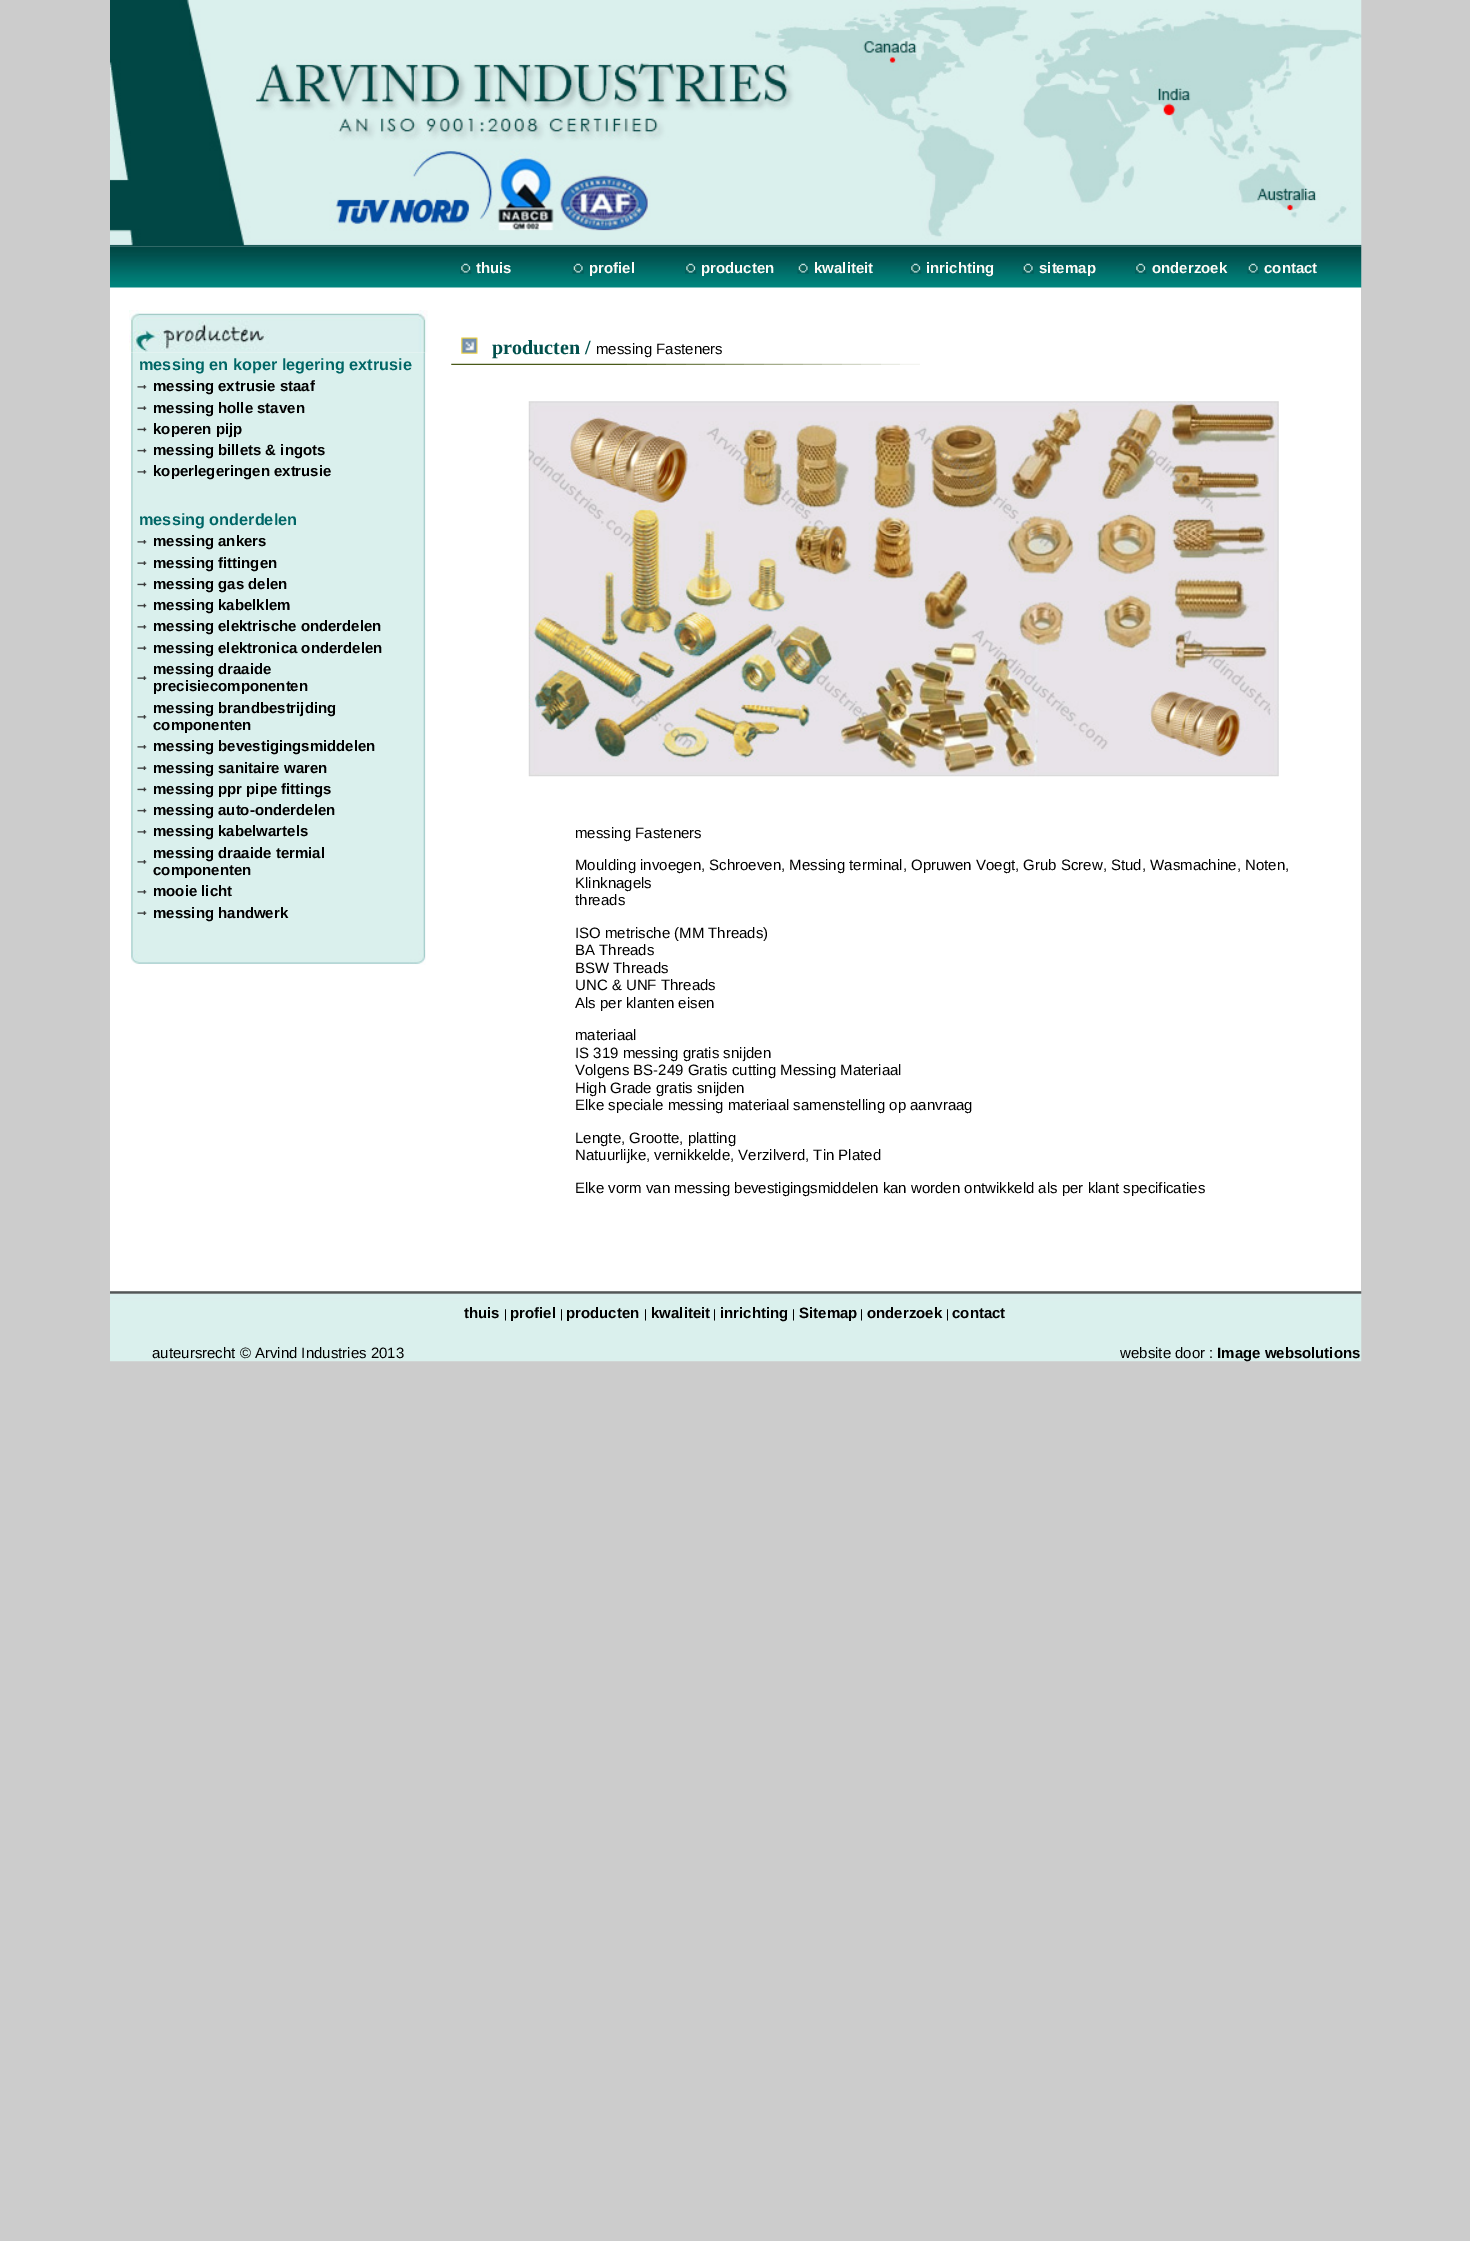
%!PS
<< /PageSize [1470 2241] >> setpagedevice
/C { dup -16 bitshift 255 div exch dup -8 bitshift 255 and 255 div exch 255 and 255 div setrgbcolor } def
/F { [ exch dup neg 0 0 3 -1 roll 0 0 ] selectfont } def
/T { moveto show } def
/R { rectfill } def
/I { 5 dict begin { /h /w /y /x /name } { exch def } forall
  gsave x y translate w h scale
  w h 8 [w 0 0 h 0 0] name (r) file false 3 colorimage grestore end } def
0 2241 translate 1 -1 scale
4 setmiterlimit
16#CCCCCC C
0 0 1470 2241 R
16#FFFFFF C
110 246 1251 1046 R
(2.rgb) 110 246 1252 42 I
(1.rgb) 110 0 1252 247 I
(3.rgb) 460 263 12 11 I
/LiberationSans-Bold 15 F
16#FFFBF7 C
(thuis) 476 273 T
(4.rgb) 572 263 12 11 I
(profiel) 589 273 T
(3.rgb) 685 263 12 11 I
(producten) 701 273 T
(5.rgb) 797 263 12 11 I
(kwaliteit) 814 273 T
(6.rgb) 910 263 12 11 I
(inrichting) 926 273 T
(4.rgb) 1022 263 12 11 I
(sitemap) 1039 273 T
(3.rgb) 1135 263 12 11 I
(onderzoek) 1152 273 T
(5.rgb) 1247 263 12 11 I
(contact) 1264 273 T
(8.rgb) 131 352 295 598 I
(7.rgb) 129 310 299 43 I
/LiberationSans-Bold 16.25 F
16#006666 C
(messing en koper legering extrusie) 139 370 T
(9.rgb) 137 385 10 4 I
/LiberationSans-Bold 15 F
16#000000 C
(messing extrusie staaf) 153 391 T
(10.rgb) 137 406 10 4 I
(messing holle staven) 153 413 T
(11.rgb) 137 427 10 5 I
(koperen pijp) 153 434 T
(12.rgb) 137 448 10 5 I
(messing billets & ingots) 153 455 T
(9.rgb) 137 470 10 4 I
(koperlegeringen extrusie) 153 476 T
/LiberationSans-Bold 16.25 F
16#006666 C
(messing onderdelen) 139 525 T
(9.rgb) 137 540 10 4 I
/LiberationSans-Bold 15 F
16#000000 C
(messing ankers) 153 546 T
(10.rgb) 137 561 10 4 I
(messing fittingen) 153 568 T
(11.rgb) 137 582 10 5 I
(messing gas delen) 153 589 T
(12.rgb) 137 603 10 5 I
(messing kabelklem) 153 610 T
(9.rgb) 137 625 10 4 I
(messing elektrische onderdelen) 153 631 T
(10.rgb) 137 646 10 4 I
(messing elektronica onderdelen) 153 653 T
(10.rgb) 137 676 10 4 I
(messing draaide) 153 674 T
(precisiecomponenten) 153 691 T
(9.rgb) 137 715 10 4 I
(messing brandbestrijding) 153 713 T
(componenten) 153 730 T
(9.rgb) 137 745 10 4 I
(messing bevestigingsmiddelen) 153 751 T
(10.rgb) 137 766 10 4 I
(messing sanitaire waren) 153 773 T
(11.rgb) 137 787 10 5 I
(messing ppr pipe fittings) 153 794 T
(12.rgb) 137 808 10 5 I
(messing auto-onderdelen) 153 815 T
(9.rgb) 137 830 10 4 I
(messing kabelwartels) 153 836 T
(9.rgb) 137 860 10 4 I
(messing draaide termial) 153 858 T
(componenten) 153 875 T
(9.rgb) 137 890 10 4 I
(mooie licht) 153 896 T
(10.rgb) 137 911 10 4 I
(messing handwerk) 153 918 T
(13.rgb) 131 950 295 15 I
(14.rgb) 461 337 17 17 I
/LiberationSerif-Bold 20 F
16#01504D C
(producten /) 492 354 T
/LiberationSans-Regular 15 F
16#000000 C
(messing Fasteners) 596 354 T
(15.rgb) 451 363 469 2 I
(16.rgb) 528 401 751 376 I
(messing Fasteners) 575 838 T
(Moulding invoegen, Schroeven, Messing terminal, Opruwen Voegt, Grub Screw, Stud, Wasmachine, Noten,) 575 870 T
(Klinknagels) 575 888 T
(threads) 575 905 T
(ISO metrische \(MM Threads\)) 575 938 T
(BA Threads) 575 955 T
(BSW Threads) 575 973 T
(UNC & UNF Threads) 575 990 T
(Als per klanten eisen) 575 1008 T
(materiaal) 575 1040 T
(IS 319 messing gratis snijden) 575 1058 T
(Volgens BS-249 Gratis cutting Messing Materiaal) 575 1075 T
(High Grade gratis snijden) 575 1093 T
(Elke speciale messing materiaal samenstelling op aanvraag) 575 1110 T
(Lengte, Grootte, platting) 575 1143 T
(Natuurlijke, vernikkelde, Verzilverd, Tin Plated) 575 1160 T
(Elke vorm van messing bevestigingsmiddelen kan worden ontwikkeld als per klant specificaties) 575 1193 T
(17.rgb) 110 1291 1252 71 I
/LiberationSans-Bold 15 F
(thuis) 464 1318 T
/LiberationSans-Regular 12 F
(|) 504 1318 T
/LiberationSans-Bold 15 F
(profiel) 510 1318 T
/LiberationSans-Regular 12 F
(|) 560 1318 T
/LiberationSans-Bold 15 F
(producten) 566 1318 T
/LiberationSans-Regular 12 F
(|) 644 1318 T
/LiberationSans-Bold 15 F
(kwaliteit) 651 1318 T
/LiberationSans-Regular 12 F
(|) 713 1318 T
/LiberationSans-Bold 15 F
(inrichting) 720 1318 T
/LiberationSans-Regular 12 F
(|) 792 1318 T
/LiberationSans-Bold 15 F
(Sitemap) 799 1318 T
/LiberationSans-Regular 12 F
(|) 860 1318 T
/LiberationSans-Bold 15 F
(onderzoek) 867 1318 T
/LiberationSans-Regular 12 F
(|) 946 1318 T
/LiberationSans-Bold 15 F
(contact) 952 1318 T
/LiberationSans-Regular 15 F
(auteursrecht © Arvind Industries 2013) 152 1358 T
(website door :) 1120 1358 T
/LiberationSans-Bold 15 F
(Image websolutions) 1217 1358 T
showpage
